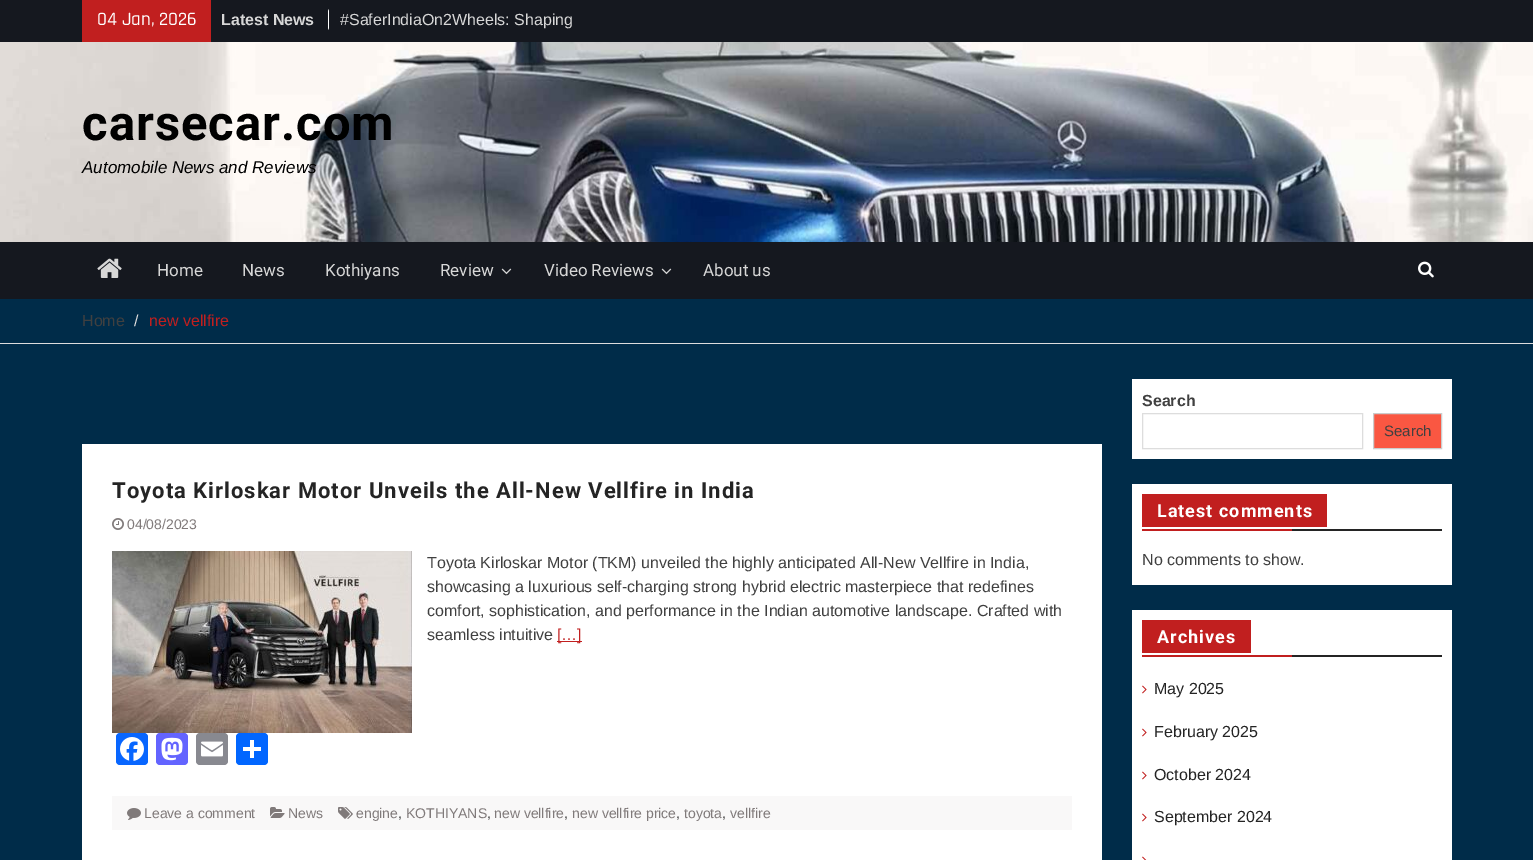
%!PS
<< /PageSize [1533 860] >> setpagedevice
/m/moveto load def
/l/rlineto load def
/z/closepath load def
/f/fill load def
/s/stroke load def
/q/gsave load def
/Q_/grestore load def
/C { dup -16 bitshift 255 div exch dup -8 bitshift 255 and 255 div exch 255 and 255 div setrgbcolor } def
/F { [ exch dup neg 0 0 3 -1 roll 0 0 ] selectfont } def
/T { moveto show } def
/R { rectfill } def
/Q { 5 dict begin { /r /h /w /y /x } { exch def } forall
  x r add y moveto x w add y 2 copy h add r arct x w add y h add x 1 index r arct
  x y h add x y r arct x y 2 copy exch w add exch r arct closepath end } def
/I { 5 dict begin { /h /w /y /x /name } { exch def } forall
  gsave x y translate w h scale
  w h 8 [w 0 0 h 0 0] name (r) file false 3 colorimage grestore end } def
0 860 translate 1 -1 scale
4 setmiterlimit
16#002C49 C
0 0 1533 860 R
16#15181F C
0 0 1533 42 R
16#C11F1F C
82 0 129 42 R
/Rajdhani-Medium 19 F
16#FFFFFF C
(04 Jan, 2026) 97 25 T
/LiberationSans-Bold 16 F
16#D7D7D7 C
(Latest News) 221 25 T
16#FFFFFF C
328 30 m 0 -21 l 1 2 l 0 17 l z f
/LiberationSans-Regular 16 F
16#D7D7D7 C
(#SaferIndiaOn2Wheels: Shaping) 340 25 T
(1.rgb) 0 42 1533 200 I
/Roboto-Bold 49 F
16#000000 C
82 140 m 1 0 (carsecar.com) ashow
/LiberationSans-Italic 17 F
(Automobile News and Reviews) 82 173 T
16#15181F C
0 242 1533 57 R
(2.rgb) 97 258 25 20 I
/Roboto-Regular 17 F
16#D7D7D7 C
(Home) 157 276 T
(News) 242 276 T
(Kothiyans) 325 276 T
(Review) 440 276 T
(3.rgb) 501 268 11 7 I
(Video Reviews) 544 276 T
(3.rgb) 661 268 11 7 I
(About us) 703 276 T
(4.rgb) 1418 261 16 17 I
16#DDDDDD C
0 343 1533 1 R
/LiberationSans-Regular 16 F
16#404040 C
(Home) 82 326 T
16#DDDDDD C
(/) 134 326 T
16#C11F1F C
(new vellfire) 149 326 T
16#FFFFFF C
82 444 1020 416 R
/Roboto-Bold 22 F
16#242424 C
112 498 m 1 0 (Toyota Kirloskar Motor Unveils the All-New Vellfire in India) ashow
(5.rgb) 112 518 12 12 I
/LiberationSans-Regular 14 F
16#807A7A C
(04/08/2023) 127 529 T
(6.rgb) 112 551 300 182 I
/LiberationSans-Regular 16 F
16#404040 C
(Toyota Kirloskar Motor \(TKM\) unveiled the highly anticipated All-New Vellfire in India,) 427 568 T
(showcasing a luxurious self-charging strong hybrid electric masterpiece that redefines) 427 592 T
(comfort, sophistication, and performance in the Indian automotive landscape. Crafted with) 427 616 T
(seamless intuitive) 427 640 T
16#C11F1F C
557 641 25 1 R
([…]) 557 640 T
16#0866FF C
116 733 32 32 4 Q f
(7.rgb) 120 737 24 24 I
16#6364FF C
156 733 32 32 4 Q f
(8.rgb) 161 737 22 24 I
16#888990 C
196 733 32 32 4 Q f
(9.rgb) 201 741 22 16 I
16#0166FF C
236 733 32 32 4 Q f
16#FFFFFF C
250 740 4 18 R
243 747 18 4 R
16#F9F8F8 C
112 796 960 34 R
(10.rgb) 127 808 14 12 I
/LiberationSans-Regular 14 F
16#807A7A C
(Leave a comment) 144 818 T
(11.rgb) 270 807 15 11 I
(News) 288 818 T
(12.rgb) 338 807 15 12 I
(engine) 356 818 T
16#404040 C
(,) 398 818 T
16#807A7A C
(KOTHIYANS) 406 818 T
16#404040 C
(,) 487 818 T
16#807A7A C
(new vellfire) 494 818 T
16#404040 C
(,) 564 818 T
16#807A7A C
(new vellfire price) 572 818 T
16#404040 C
(,) 676 818 T
16#807A7A C
(toyota) 684 818 T
16#404040 C
(,) 722 818 T
16#807A7A C
(vellfire) 730 818 T
16#FFFFFF C
1132 379 320 80 R
/LiberationSans-Bold 16 F
16#404040 C
(Search) 1142 406 T
16#DDDDDD C
1142.5 413.5 220 35 rectstroke
16#FA5742 C
1373.5 413.5 m 68 0 l 0 35 l -68 0 l z q f Q_
16#CCCCCC C
s
/LiberationSans-Regular 15 F
16#404040 C
(Search) 1384 436 T
16#FFFFFF C
1132 484 320 101 R
16#242424 C
1292 529 150 2 R
16#C11F1F C
1142 494 185 33 R
/Roboto-Bold 18 F
16#FFFFFF C
1157 517 m 1 0 (Latest comments) ashow
16#C11F1F C
1142 529 150 2 R
/LiberationSans-Regular 16 F
16#404040 C
(No comments to show.) 1142 565 T
16#FFFFFF C
1132 610 320 250 R
16#242424 C
1292 655 150 2 R
16#C11F1F C
1142 620 109 33 R
/Roboto-Bold 18 F
16#FFFFFF C
1157 643 m 1 0 (Archives) ashow
16#C11F1F C
1142 655 150 2 R
(13.rgb) 1142 685 5 9 I
/LiberationSans-Regular 16 F
16#242424 C
(May 2025) 1154 694 T
(13.rgb) 1142 728 5 9 I
(February 2025) 1154 737 T
(13.rgb) 1142 771 5 9 I
(October 2024) 1154 780 T
(13.rgb) 1142 813 5 9 I
(September 2024) 1154 822 T
(14.rgb) 1142 856 5 4 I
showpage
